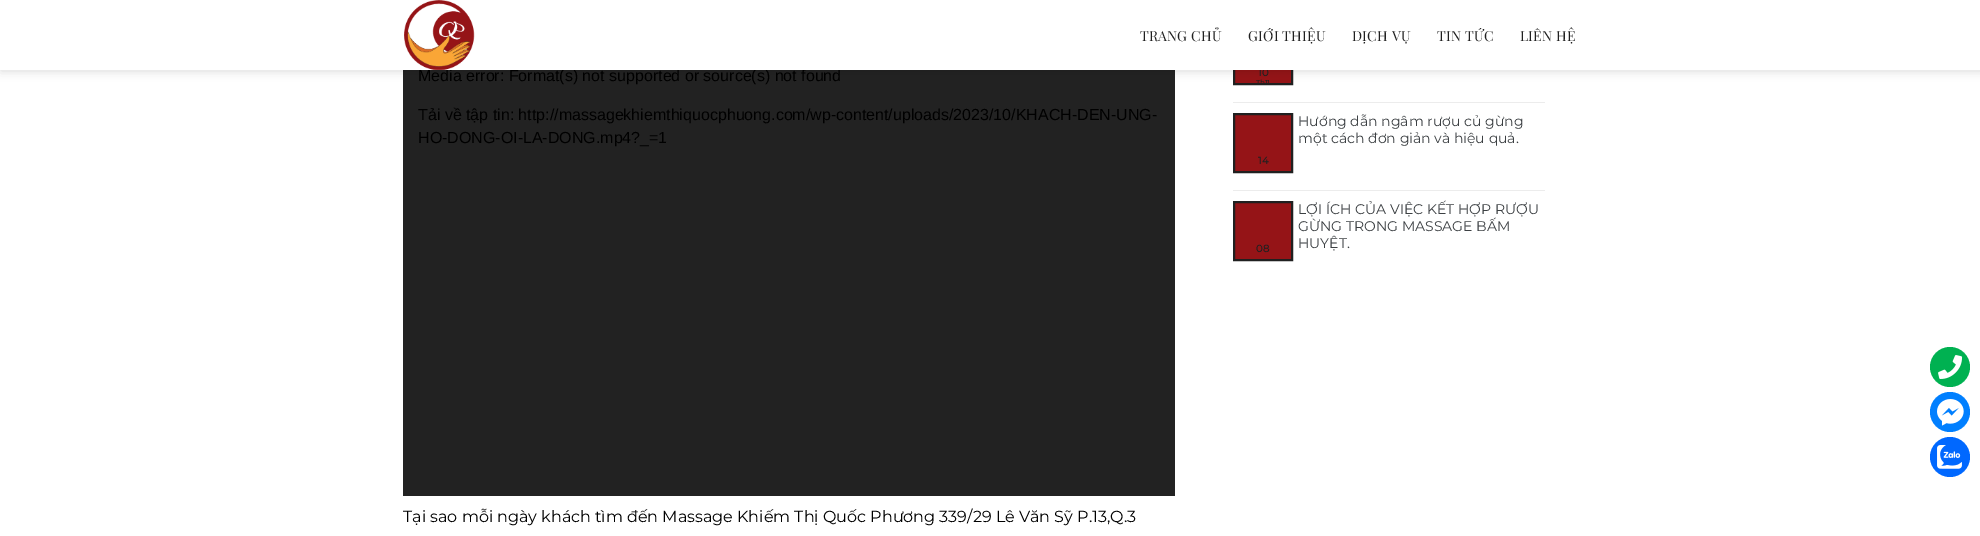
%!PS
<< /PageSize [1980 536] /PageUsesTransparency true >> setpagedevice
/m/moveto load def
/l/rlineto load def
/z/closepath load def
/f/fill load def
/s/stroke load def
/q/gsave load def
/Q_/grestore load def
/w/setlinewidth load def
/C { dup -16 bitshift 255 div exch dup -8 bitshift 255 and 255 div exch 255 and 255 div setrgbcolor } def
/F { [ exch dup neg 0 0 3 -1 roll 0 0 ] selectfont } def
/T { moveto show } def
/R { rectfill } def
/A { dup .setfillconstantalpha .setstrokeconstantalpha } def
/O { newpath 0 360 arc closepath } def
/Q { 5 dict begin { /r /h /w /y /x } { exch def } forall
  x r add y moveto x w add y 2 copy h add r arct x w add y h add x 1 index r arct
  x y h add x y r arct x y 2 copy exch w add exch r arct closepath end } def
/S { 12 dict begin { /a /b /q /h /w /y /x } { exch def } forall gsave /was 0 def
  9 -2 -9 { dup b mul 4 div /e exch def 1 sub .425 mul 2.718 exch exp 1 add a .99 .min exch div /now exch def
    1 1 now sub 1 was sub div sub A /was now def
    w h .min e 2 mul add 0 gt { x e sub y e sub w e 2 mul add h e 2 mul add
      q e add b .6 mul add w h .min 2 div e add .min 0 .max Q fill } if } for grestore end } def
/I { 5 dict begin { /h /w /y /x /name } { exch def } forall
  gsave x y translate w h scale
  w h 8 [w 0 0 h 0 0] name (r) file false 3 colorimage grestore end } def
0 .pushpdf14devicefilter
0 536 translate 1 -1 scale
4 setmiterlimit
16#FFFFFF C
0 0 1980 536 R
16#222222 C
403 70 772 426 R
16#951417 C
1235 70 56 13 R
16#202020 C
2 w
1234 26 58 58 rectstroke
16#000000 C
1 1 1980 70 0 5 .15 S
/LiberationSans-Regular 16 F
(Media error: Format\(s\) not supported or source\(s\) not found) 418 81 T
/Montserrat-Bold 10 F
16#202020 C
(10) 1258 76 T
16#FFFFFF C
0 0 1980 70 R
(1.rgb) 404 0 71 70 I
/PlayfairDisplay-Regular 14 F
16#202020 C
1140 41 m .25 0 (TRANG CHỦ) ashow
1248 41 m .25 0 (GIỚI THIỆU) ashow
1352 41 m .25 0 (DỊCH VỤ) ashow
1437 41 m .25 0 (TIN TỨC) ashow
1520 41 m .25 0 (LIÊN HỆ) ashow
/LiberationSans-Regular 16 F
16#000000 C
(Tải về tập tin: http://massagekhiemthiquocphuong.com/wp-content/uploads/2023/10/KHACH-DEN-UNG-) 418 120 T
(HO-DONG-OI-LA-DONG.mp4?_=1) 418 143 T
/Montserrat-Thin 16 F
(Tại sao mỗi ngày khách tìm đến Massage Khiếm Thị Quốc Phương 339/29 Lê Văn Sỹ P.13,Q.3) 403 522 T
/Montserrat-Bold 7 F
16#202020 C
(Th11) 1256 85 T
16#ECECEC C
1233 102 312 1 R
/Montserrat-Thin 14 F
16#3C4043 C
(Hướng dẫn ngâm rượu củ gừng) 1298 126 T
(một cách đơn giản và hiệu quả.) 1298 143 T
16#951417 C
1234 114 m 58 0 l 0 58 l -58 0 l z q f Q_
16#202020 C
s
/Montserrat-Bold 10 F
(14) 1258 164 T
16#ECECEC C
1233 190 312 1 R
16#951417 C
1234 202 m 58 0 l 0 58 l -58 0 l z q f Q_
16#202020 C
s
(08) 1256 252 T
/Montserrat-Thin 14 F
16#3C4043 C
(LỢI ÍCH CỦA VIỆC KẾT HỢP RƯỢU) 1298 214 T
(GỪNG TRONG MASSAGE BẤM) 1298 231 T
(HUYỆT.) 1298 248 T
16#00B151 C
1950 367 20 O f
(2.rgb) 1938 355 25 24 I
16#007FFF C
1950 412 20 O f
(3.rgb) 1937 399 27 27 I
16#0068FF C
1950 457 20 O f
(4.rgb) 1937 445 25 24 I
.poppdf14devicefilter showpage
